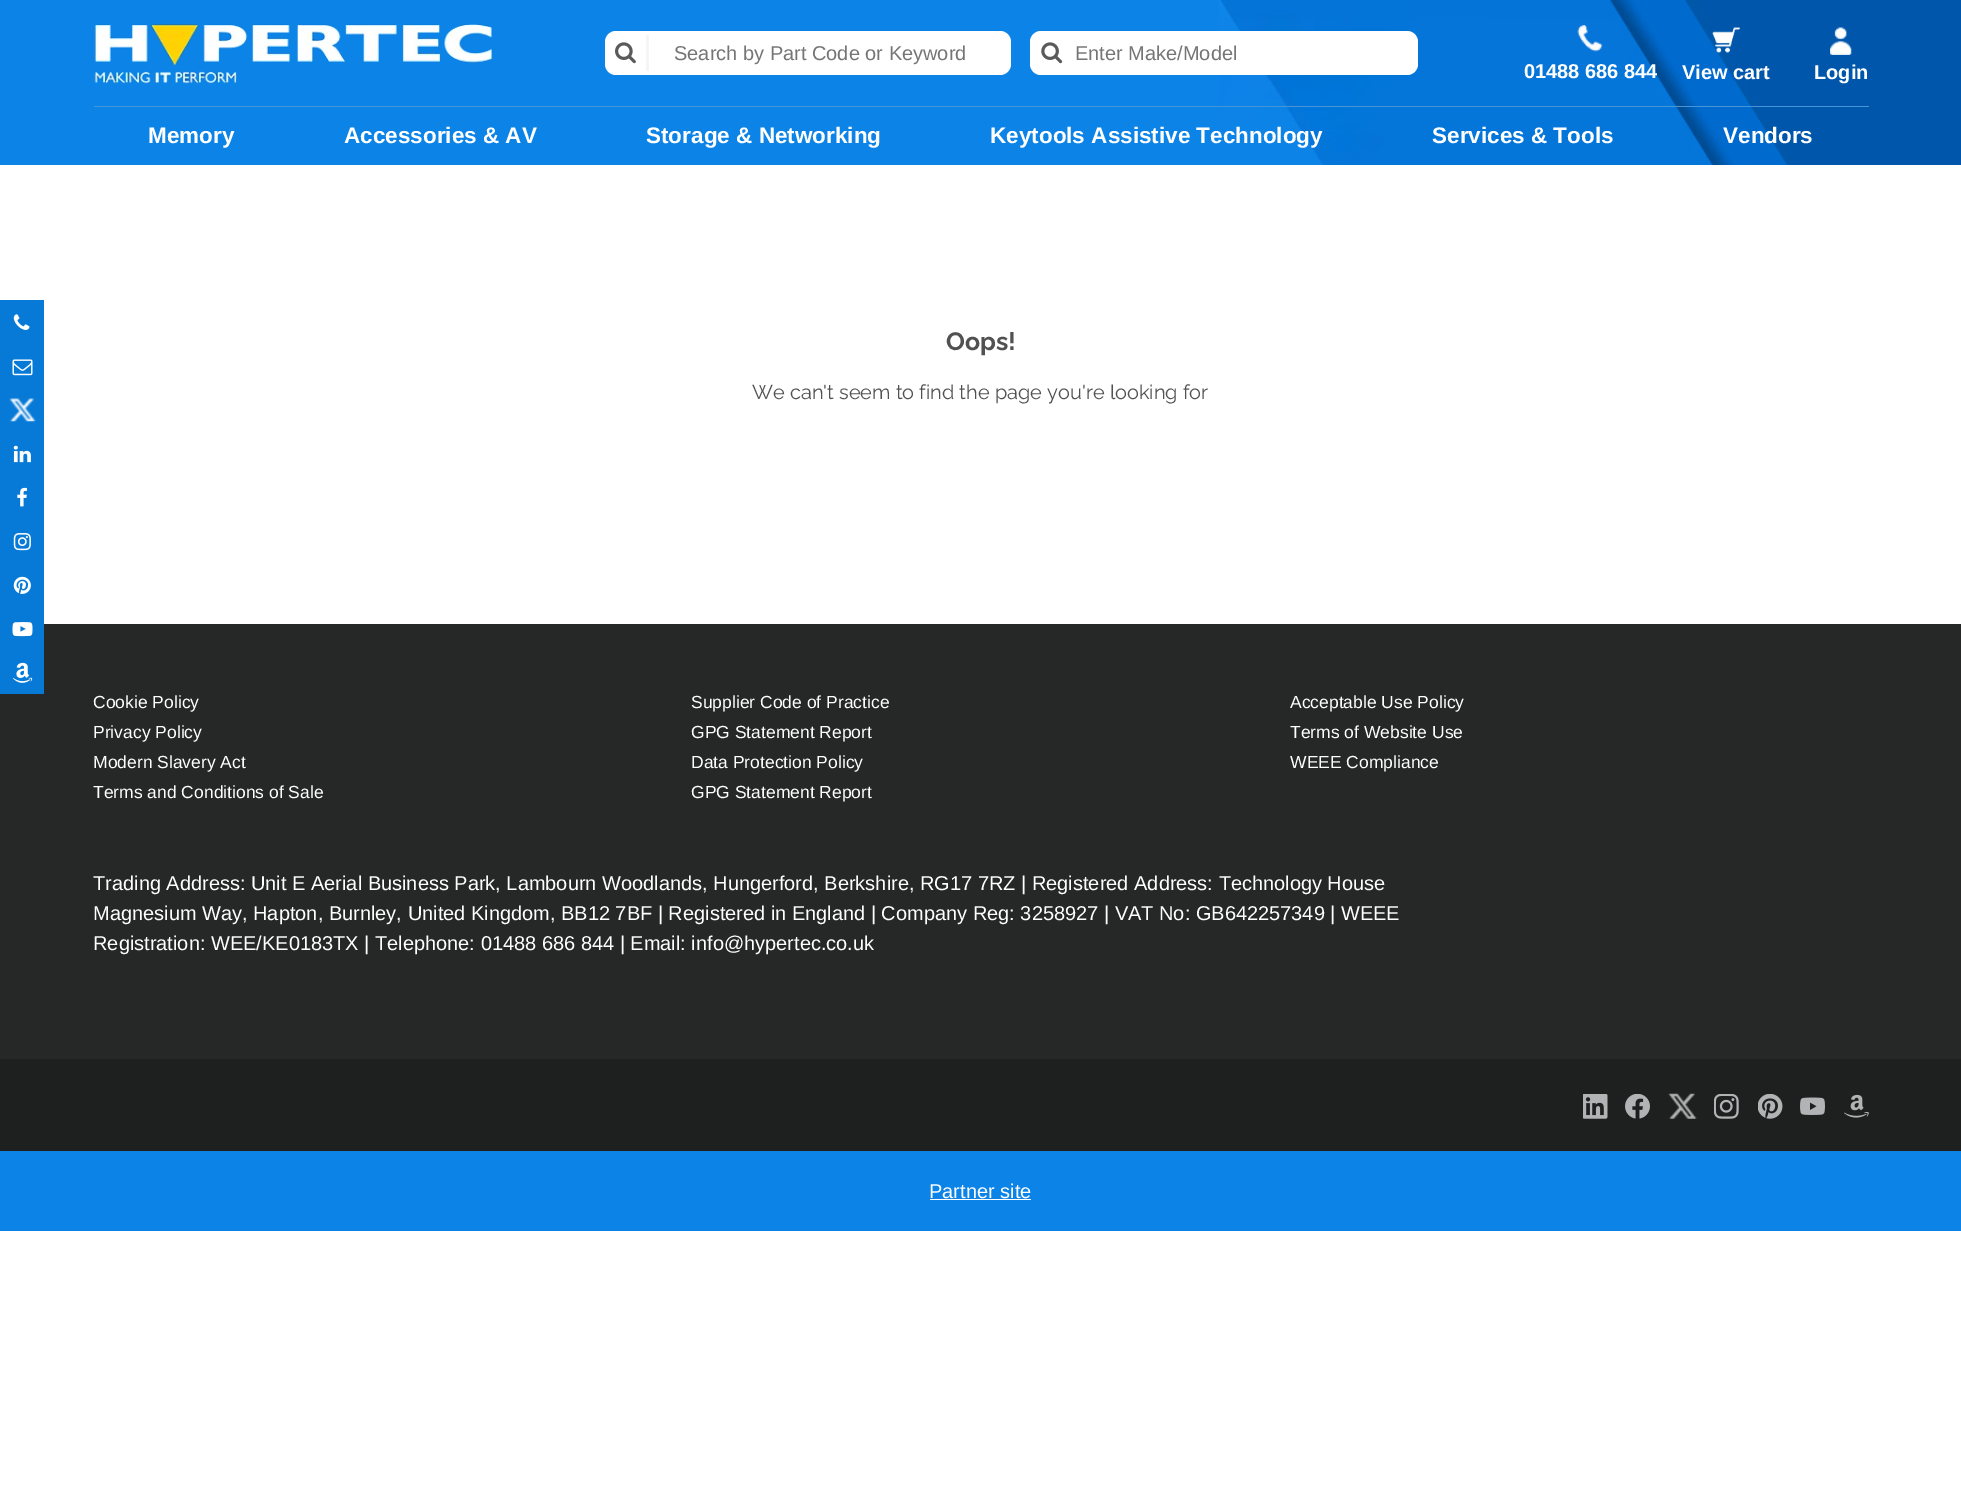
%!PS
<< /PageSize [1961 1500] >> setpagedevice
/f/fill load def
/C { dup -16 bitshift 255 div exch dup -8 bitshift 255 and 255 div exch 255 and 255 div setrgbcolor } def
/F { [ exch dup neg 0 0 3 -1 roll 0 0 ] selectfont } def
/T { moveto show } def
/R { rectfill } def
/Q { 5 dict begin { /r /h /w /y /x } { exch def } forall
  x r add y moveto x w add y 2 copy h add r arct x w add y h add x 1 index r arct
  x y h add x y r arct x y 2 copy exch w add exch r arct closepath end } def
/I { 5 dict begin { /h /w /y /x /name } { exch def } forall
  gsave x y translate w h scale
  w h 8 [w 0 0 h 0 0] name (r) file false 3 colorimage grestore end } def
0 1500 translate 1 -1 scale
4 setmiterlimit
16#FFFFFF C
0 0 1961 1500 R
16#0C83E7 C
0 0 1219 165 R
(1.rgb) 1219 0 742 165 I
16#4595D7 C
94 106 1775 1 R
(2.rgb) 94 24 399 60 I
16#FFFFFF C
605 31 406 44 11 Q f
16#F5F5F5 C
646 35 3 36 R
(3.rgb) 615 42 21 22 I
/LiberationSans-Regular 20 F
16#757575 C
(Search by Part Code or Keyword) 674 60 T
16#FFFFFF C
1030 31 388 44 11 Q f
(4.rgb) 1041 42 22 22 I
16#757575 C
(Enter Make/Model) 1075 60 T
(5.rgb) 1577 25 26 27 I
/LiberationSans-Bold 20 F
16#FFFFFF C
(01488 686 844) 1524 78 T
(6.rgb) 1712 27 28 26 I
(View cart) 1682 79 T
(7.rgb) 1830 27 22 28 I
(Login) 1814 79 T
/LiberationSans-Bold 22.5 F
(Memory) 148 143 T
(Accessories & AV) 344 143 T
(Storage & Networking) 646 143 T
(Keytools Assistive Technology) 990 143 T
(Services & Tools) 1432 143 T
(Vendors) 1723 143 T
/Raleway-Bold 25 F
16#515151 C
(Oops!) 946 350 T
/Raleway-Regular 20 F
(We can't seem to find the page you're looking for) 752 399 T
16#262727 C
0 624 1961 435 R
16#077AD7 C
0 300 44 394 R
(8.rgb) 13 314 17 16 I
(9.rgb) 12 359 21 17 I
(10.rgb) 9 398 27 24 I
(11.rgb) 13 445 18 18 I
(12.rgb) 17 487 10 20 I
(13.rgb) 13 533 18 18 I
(14.rgb) 13 576 18 18 I
(15.rgb) 12 622 21 15 I
(16.rgb) 12 662 21 21 I
/LiberationSans-Regular 17.5 F
16#FFFFFF C
(Cookie Policy) 93 708 T
(Supplier Code of Practice) 691 708 T
(Acceptable Use Policy) 1290 708 T
(Privacy Policy) 93 738 T
(GPG Statement Report) 691 738 T
(Terms of Website Use) 1290 738 T
(Modern Slavery Act) 93 768 T
(Data Protection Policy) 691 768 T
(WEEE Compliance) 1290 768 T
(Terms and Conditions of Sale) 93 798 T
(GPG Statement Report) 691 798 T
/LiberationSans-Regular 20 F
(Trading Address: Unit E Aerial Business Park, Lambourn Woodlands, Hungerford, Berkshire, RG17 7RZ | Registered Address: Technology House) 93 890 T
(Magnesium Way, Hapton, Burnley, United Kingdom, BB12 7BF | Registered in England | Company Reg: 3258927 | VAT No: GB642257349 | WEEE) 93 920 T
(Registration: WEE/KE0183TX | Telephone: 01488 686 844 | Email: info@hypertec.co.uk) 93 950 T
16#1E1F1F C
0 1059 1961 92 R
(17.rgb) 1583 1094 25 25 I
(18.rgb) 1625 1094 25 25 I
(19.rgb) 1668 1093 29 26 I
(20.rgb) 1714 1094 25 25 I
(21.rgb) 1758 1094 25 25 I
(22.rgb) 1800 1097 25 18 I
(23.rgb) 1844 1094 25 24 I
16#0C83E7 C
0 1151 1961 80 R
16#FFFFFF C
(Partner site) 929 1198 T
930 1199 101 1 R
showpage
